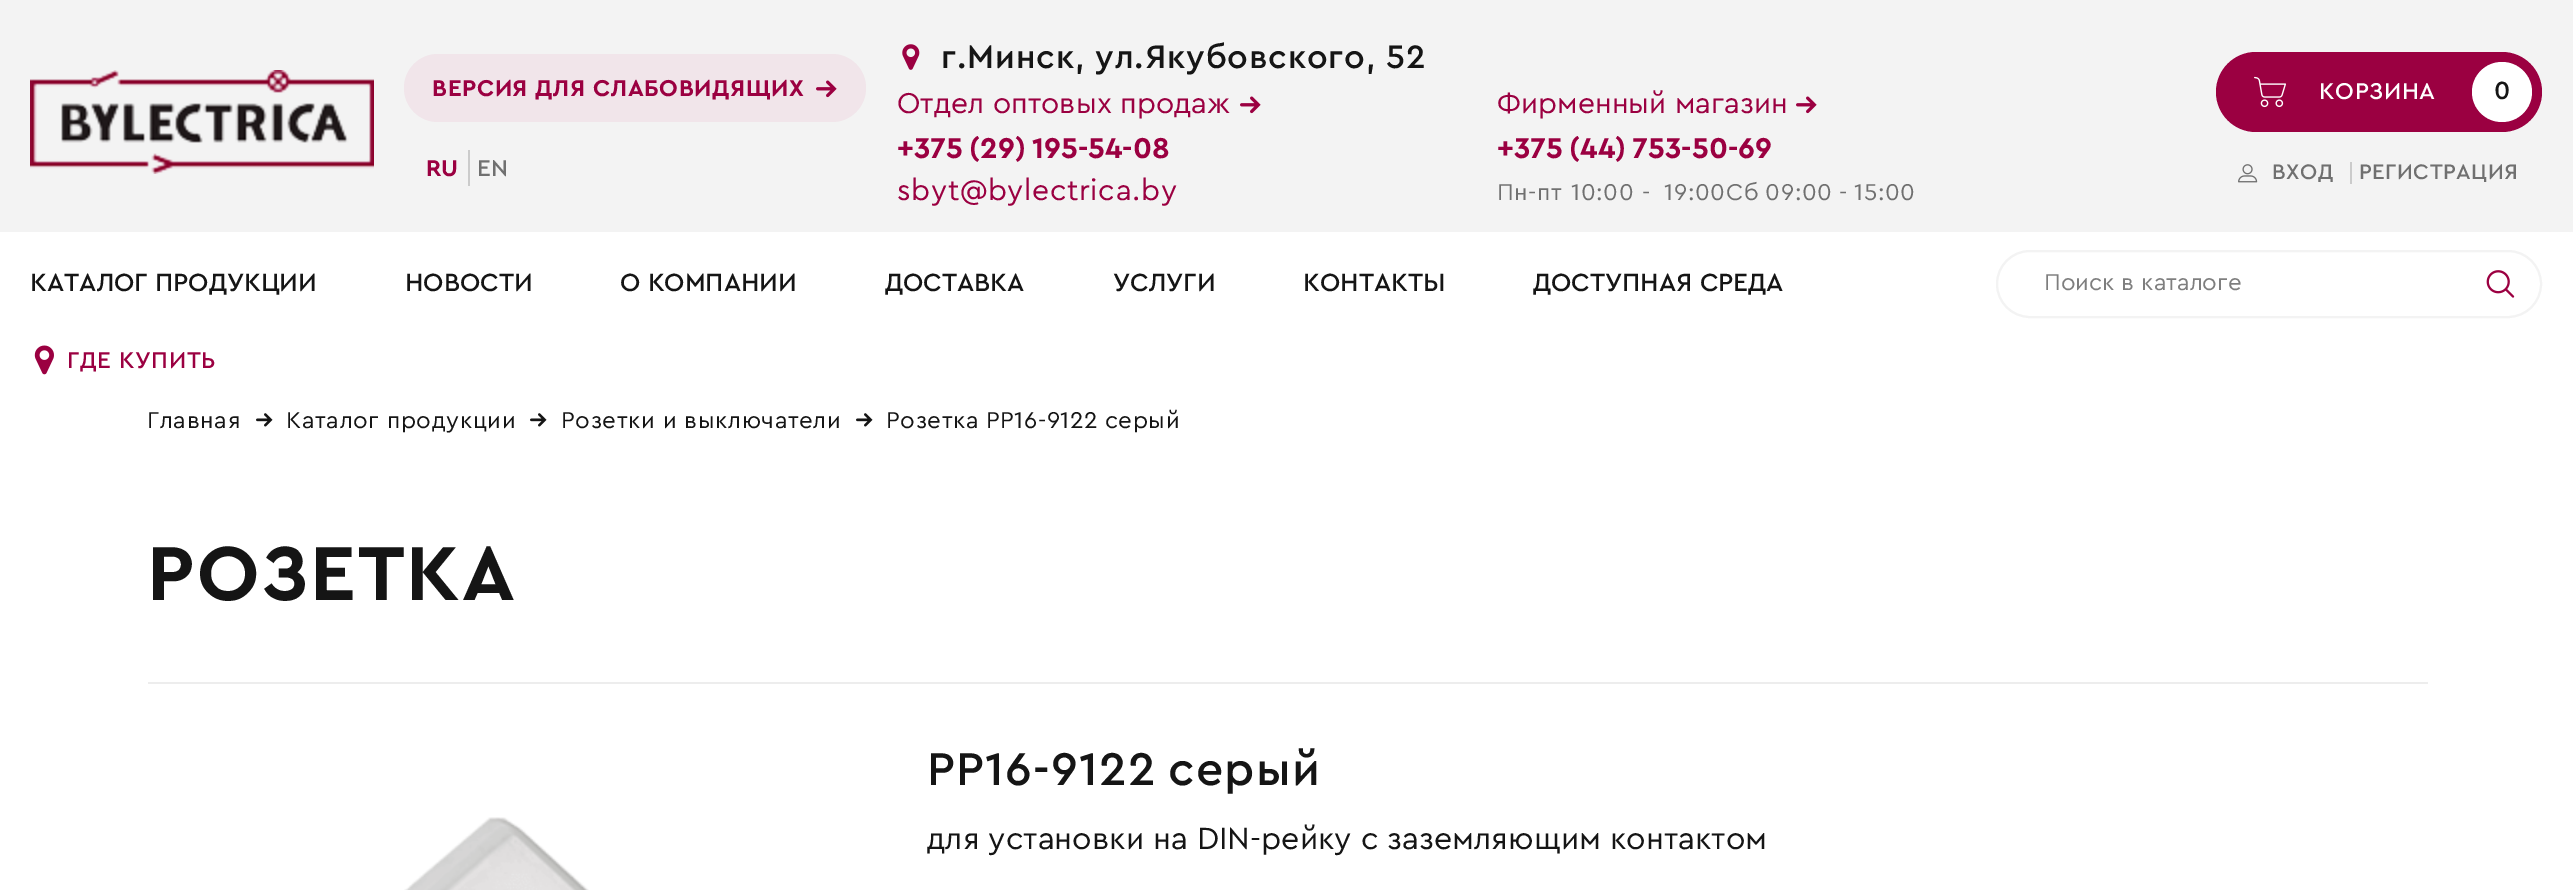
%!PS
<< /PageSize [2573 890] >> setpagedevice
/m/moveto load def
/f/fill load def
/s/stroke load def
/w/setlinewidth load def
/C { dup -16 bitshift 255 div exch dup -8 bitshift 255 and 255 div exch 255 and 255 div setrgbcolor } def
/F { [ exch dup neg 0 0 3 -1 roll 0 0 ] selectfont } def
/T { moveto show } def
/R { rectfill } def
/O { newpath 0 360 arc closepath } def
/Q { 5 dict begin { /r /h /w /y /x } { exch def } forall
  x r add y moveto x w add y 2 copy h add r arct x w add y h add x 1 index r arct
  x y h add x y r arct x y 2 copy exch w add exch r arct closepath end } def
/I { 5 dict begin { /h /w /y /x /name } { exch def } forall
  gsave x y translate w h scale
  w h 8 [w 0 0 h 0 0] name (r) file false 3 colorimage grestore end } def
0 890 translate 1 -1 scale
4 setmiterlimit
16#FFFFFF C
0 0 2573 890 R
16#F3F3F3 C
0 0 2573 232 R
(1.rgb) 30 70 344 104 I
16#F1E5EA C
404 54 462 68 34 Q f
/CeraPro-Bold 24 F
16#9B0041 C
432 96 m .6 0 (ВЕРСИЯ ДЛЯ СЛАБОВИДЯЩИХ) ashow
(2.rgb) 816 80 21 18 I
(RU) 426 176 T
16#CBCBCB C
468 150 2 36 R
/CeraPro-Medium 24 F
16#707070 C
(EN) 477 176 T
(3.rgb) 902 44 18 26 I
/CeraPro-Medium 34 F
16#151515 C
941 68 m .8 0 (г.Минск, ул.Якубовского, 52) ashow
/CeraPro-Regular 30 F
16#9B0041 C
(Отдел оптовых продаж) 897 113 T
(4.rgb) 1240 96 21 18 I
/CeraPro-Bold 30 F
897 158 m -2 0 32 (+375 \(29\) 195-54-08) widthshow
/CeraPro-Regular 30 F
897 200 m .6 0 (sbyt@bylectrica.by) ashow
(Фирменный магазин) 1497 113 T
(4.rgb) 1796 96 21 18 I
/CeraPro-Bold 30 F
1497 158 m -2 0 32 (+375 \(44\) 753-50-69) widthshow
/CeraPro-Regular 24 F
16#707070 C
1497 200 m 1 0 32 .6 0 (Пн-пт 10:00 -) awidthshow
1664 200 m 1 0 32 .6 0 (19:00) awidthshow
1726 200 m -1 0 32 .6 0 (Сб 09:00 - 15:00) awidthshow
16#9B0041 C
2216 52 326 80 40 Q f
(5.rgb) 2254 76 32 32 I
/CeraPro-Medium 24 F
16#FFFFFF C
2319 99 m .6 0 (КОРЗИНА) ashow
2502 92 30 O f
/CeraPro-Medium 26 F
16#151515 C
2494 99 m .6 0 (0) ashow
(6.rgb) 2238 164 20 19 I
/CeraPro-Medium 22 F
16#707070 C
2272 179 m .5 0 (ВХОД) ashow
16#CBCBCB C
2350 162 2 22 R
16#707070 C
2359 179 m .5 0 (РЕГИСТРАЦИЯ) ashow
/CeraPro-Medium 26 F
16#151515 C
(КАТАЛОГ ПРОДУКЦИИ) 30 291 T
(НОВОСТИ) 405 291 T
(О КОМПАНИИ) 620 291 T
(ДОСТАВКА) 885 291 T
(УСЛУГИ) 1113 291 T
(КОНТАКТЫ) 1303 291 T
(ДОСТУПНАЯ СРЕДА) 1533 291 T
16#F3F3F3 C
2 w
1997 251 544 66 33 Q s
/CeraPro-Regular 24 F
16#7E7E7E C
(Поиск в каталоге) 2044 290 T
(7.rgb) 2486 270 29 28 I
(8.rgb) 34 345 20 30 I
/CeraPro-Medium 24 F
16#9B0041 C
67 368 m .6 0 (ГДЕ КУПИТЬ) ashow
/CeraPro-Regular 24 F
16#151515 C
147 428 m .6 0 (Главная) ashow
(9.rgb) 256 413 17 14 I
286 428 m .6 0 (Каталог продукции) ashow
(9.rgb) 530 413 17 14 I
561 428 m .6 0 (Розетки и выключатели) ashow
(9.rgb) 856 413 17 14 I
886 428 m -1 0 32 .6 0 (Розетка РР16-9122 серый) awidthshow
16#EDEDED C
148 682 2280 2 R
/CeraPro-Bold 80 F
16#151515 C
147 600 m 2 0 (РОЗЕТКА) ashow
(10.rgb) 404 817 185 73 I
/CeraPro-Medium 48 F
927 785 m -3 0 32 1.25 0 (РР16-9122 серый) awidthshow
/CeraPro-Regular 32 F
(для установки на DIN-рейку с заземляющим контактом) 927 849 T
showpage
